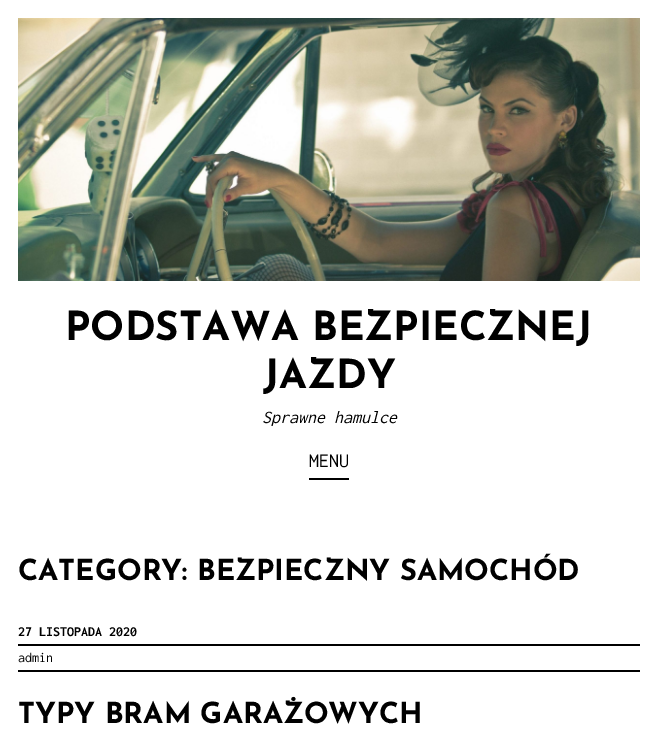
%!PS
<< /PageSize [658 752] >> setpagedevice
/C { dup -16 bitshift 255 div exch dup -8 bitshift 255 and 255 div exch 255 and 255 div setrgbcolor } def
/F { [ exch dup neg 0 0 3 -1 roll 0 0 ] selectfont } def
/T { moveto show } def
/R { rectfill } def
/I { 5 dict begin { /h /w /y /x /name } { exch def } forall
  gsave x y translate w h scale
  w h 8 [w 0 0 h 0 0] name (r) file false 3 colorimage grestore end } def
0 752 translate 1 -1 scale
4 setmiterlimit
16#FFFFFF C
0 0 658 752 R
(1.rgb) 18 18 622 263 I
/JosefinSans-Bold 40 F
16#000000 C
(PODSTAWA BEZPIECZNEJ) 65 340 T
(JAZDY) 263 388 T
/Inconsolata-Italic 18 F
(Sprawne hamulce) 262 423 T
309 478 40 2 R
/Inconsolata-Regular 20 F
(MENU) 309 467 T
/JosefinSans-Bold 29 F
(CATEGORY: BEZPIECZNY SAMOCHÓD) 18 580 T
18 670 622 2 R
18 644 622 2 R
/Inconsolata-Bold 14 F
(27 LISTOPADA 2020) 18 636 T
/Inconsolata-Regular 14 F
(admin) 18 662 T
/JosefinSans-Bold 29 F
(TYPY BRAM GARAŻOWYCH) 18 723 T
showpage
